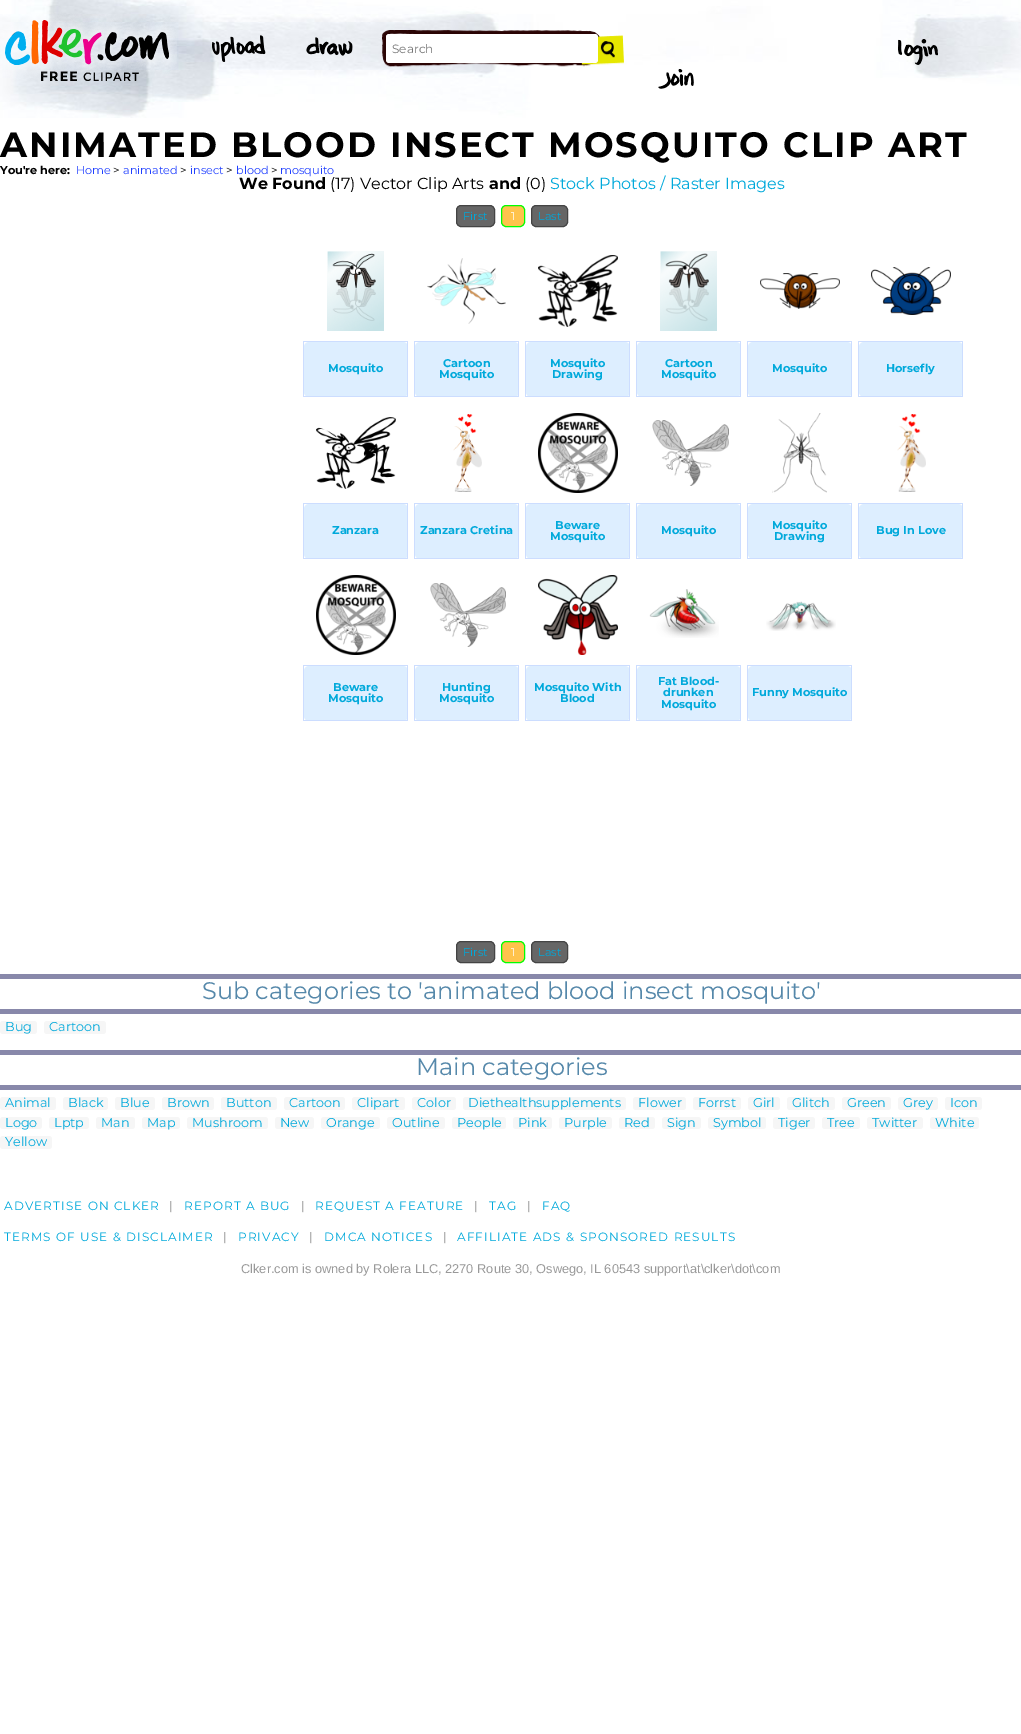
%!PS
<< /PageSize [1021 1734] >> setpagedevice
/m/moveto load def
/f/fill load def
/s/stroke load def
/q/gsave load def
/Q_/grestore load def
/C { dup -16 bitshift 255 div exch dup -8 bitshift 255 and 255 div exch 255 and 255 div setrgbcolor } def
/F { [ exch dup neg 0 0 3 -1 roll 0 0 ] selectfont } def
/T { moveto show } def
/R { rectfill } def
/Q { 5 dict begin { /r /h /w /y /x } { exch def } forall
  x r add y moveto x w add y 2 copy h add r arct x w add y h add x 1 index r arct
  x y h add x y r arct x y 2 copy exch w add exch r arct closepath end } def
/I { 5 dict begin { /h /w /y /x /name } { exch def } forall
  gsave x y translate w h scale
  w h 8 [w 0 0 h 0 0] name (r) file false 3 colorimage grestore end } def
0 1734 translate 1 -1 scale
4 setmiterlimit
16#FFFFFF C
0 0 1021 1734 R
(1.rgb) 0 0 1021 118 I
(2.rgb) 0 12 177 69 I
(3.rgb) 212 35 54 27 I
(4.rgb) 306 37 47 19 I
(5.rgb) 382 30 242 37 I
386 34 212 29 3 Q f
/Montserrat-Regular 12 F
16#757575 C
(Search) 392 53 T
(6.rgb) 898 39 40 26 I
(7.rgb) 658 69 36 20 I
/Montserrat-Bold 35.2 F
16#000000 C
0 157 m 2.1 0 (ANIMATED BLOOD INSECT MOSQUITO CLIP ART) ashow
/Montserrat-Bold 11.25 F
(You're here:) 0 174 T
/Montserrat-Regular 11.25 F
16#2040FF C
(Home) 76 174 T
16#000000 C
(>) 113 174 T
16#2040FF C
(animated) 123 174 T
16#000000 C
(>) 180 174 T
16#2040FF C
(insect) 190 174 T
16#000000 C
(>) 226 174 T
16#2040FF C
(blood) 236 174 T
16#000000 C
(>) 271 174 T
16#2040FF C
(mosquito) 280 174 T
/Montserrat-Bold 16 F
16#000000 C
(We Found) 239 189 T
/Montserrat-Regular 16 F
(\(17\) Vector Clip Arts) 330 189 T
/Montserrat-Bold 16 F
(and) 489 189 T
/Montserrat-Regular 16 F
(\(0\)) 525 189 T
16#00A9DB C
(Stock Photos / Raster Images) 550 189 T
16#666666 C
456.5 205.5 38 21 4.5 Q q f Q_
16#444444 C
s
/Montserrat-Regular 11.25 F
16#00A9DB C
(First) 463 220 T
16#FFC34C C
501.5 205.5 23 21 4.5 Q q f Q_
16#00FF00 C
s
16#FFFFFF C
(1) 511 220 T
16#666666 C
531.5 205.5 36 21 4.5 Q q f Q_
16#444444 C
s
16#00A9DB C
(Last) 538 220 T
(8.rgb) 327 251 57 80 I
16#DDEEFF C
304 342 104 55 5 Q f
16#CCDDFF C
303 341 105 1 R
407 341 1 56 R
303 396 105 1 R
303 341 1 56 R
/Montserrat-Bold 11.25 F
16#00A9DB C
(Mosquito) 328 372 T
(9.rgb) 427 258 79 66 I
16#DDEEFF C
415 342 104 55 5 Q f
16#CCDDFF C
414 341 105 1 R
518 341 1 56 R
414 396 105 1 R
414 341 1 56 R
16#00A9DB C
(Cartoon) 443 367 T
(Mosquito) 439 378 T
(10.rgb) 538 255 80 72 I
16#DDEEFF C
526 342 104 55 5 Q f
16#CCDDFF C
525 341 105 1 R
629 341 1 56 R
525 396 105 1 R
525 341 1 56 R
16#00A9DB C
(Mosquito) 550 367 T
(Drawing) 552 378 T
(11.rgb) 660 251 57 80 I
16#DDEEFF C
637 342 104 55 5 Q f
16#CCDDFF C
636 341 105 1 R
740 341 1 56 R
636 396 105 1 R
636 341 1 56 R
16#00A9DB C
(Cartoon) 665 367 T
(Mosquito) 661 378 T
(12.rgb) 760 273 80 36 I
16#DDEEFF C
748 342 104 55 5 Q f
16#CCDDFF C
747 341 105 1 R
851 341 1 56 R
747 396 105 1 R
747 341 1 56 R
16#00A9DB C
(Mosquito) 772 372 T
(13.rgb) 871 267 80 48 I
16#DDEEFF C
859 342 104 55 5 Q f
16#CCDDFF C
858 341 105 1 R
962 341 1 56 R
858 396 105 1 R
858 341 1 56 R
16#00A9DB C
(Horsefly) 886 372 T
(14.rgb) 316 417 80 72 I
16#DDEEFF C
304 504 104 55 5 Q f
16#CCDDFF C
303 503 105 1 R
407 503 1 56 R
303 558 105 1 R
303 503 1 56 R
16#00A9DB C
(Zanzara) 332 534 T
(15.rgb) 453 414 29 78 I
16#DDEEFF C
415 504 104 55 5 Q f
16#CCDDFF C
414 503 105 1 R
518 503 1 56 R
414 558 105 1 R
414 503 1 56 R
16#00A9DB C
(Zanzara Cretina) 420 534 T
(16.rgb) 538 413 80 80 I
16#DDEEFF C
526 504 104 55 5 Q f
16#CCDDFF C
525 503 105 1 R
629 503 1 56 R
525 558 105 1 R
525 503 1 56 R
16#00A9DB C
(Beware) 555 529 T
(Mosquito) 550 540 T
(17.rgb) 652 420 77 66 I
16#DDEEFF C
637 504 104 55 5 Q f
16#CCDDFF C
636 503 105 1 R
740 503 1 56 R
636 558 105 1 R
636 503 1 56 R
16#00A9DB C
(Mosquito) 661 534 T
(18.rgb) 772 413 55 80 I
16#DDEEFF C
748 504 104 55 5 Q f
16#CCDDFF C
747 503 105 1 R
851 503 1 56 R
747 558 105 1 R
747 503 1 56 R
16#00A9DB C
(Mosquito) 772 529 T
(Drawing) 774 540 T
(19.rgb) 897 414 29 78 I
16#DDEEFF C
859 504 104 55 5 Q f
16#CCDDFF C
858 503 105 1 R
962 503 1 56 R
858 558 105 1 R
858 503 1 56 R
16#00A9DB C
(Bug In Love) 876 534 T
(16.rgb) 316 575 80 80 I
16#DDEEFF C
304 666 104 55 5 Q f
16#CCDDFF C
303 665 105 1 R
407 665 1 56 R
303 720 105 1 R
303 665 1 56 R
16#00A9DB C
(Beware) 333 691 T
(Mosquito) 328 702 T
(20.rgb) 430 583 76 64 I
16#DDEEFF C
415 666 104 55 5 Q f
16#CCDDFF C
414 665 105 1 R
518 665 1 56 R
414 720 105 1 R
414 665 1 56 R
16#00A9DB C
(Hunting) 442 691 T
(Mosquito) 439 702 T
(21.rgb) 538 575 80 80 I
16#DDEEFF C
526 666 104 55 5 Q f
16#CCDDFF C
525 665 105 1 R
629 665 1 56 R
525 720 105 1 R
525 665 1 56 R
16#00A9DB C
(Mosquito With) 534 691 T
(Blood) 560 702 T
(22.rgb) 649 589 70 49 I
16#DDEEFF C
637 666 104 55 5 Q f
16#CCDDFF C
636 665 105 1 R
740 665 1 56 R
636 720 105 1 R
636 665 1 56 R
16#00A9DB C
(Fat Blood-) 658 685 T
(drunken) 663 696 T
(Mosquito) 661 708 T
(23.rgb) 766 601 70 30 I
16#DDEEFF C
748 666 104 55 5 Q f
16#CCDDFF C
747 665 105 1 R
851 665 1 56 R
747 720 105 1 R
747 665 1 56 R
16#00A9DB C
(Funny Mosquito) 752 696 T
16#666666 C
456.5 941.5 38 21 4.5 Q q f Q_
16#444444 C
s
/Montserrat-Regular 11.25 F
16#00A9DB C
(First) 463 956 T
16#FFC34C C
501.5 941.5 23 21 4.5 Q q f Q_
16#00FF00 C
s
16#FFFFFF C
(1) 511 956 T
16#666666 C
531.5 941.5 36 21 4.5 Q q f Q_
16#444444 C
s
16#00A9DB C
(Last) 538 956 T
16#8888AA C
0 974 1021 5 R
0 1009 1021 5 R
/Montserrat-Regular 24 F
16#5588AA C
(Sub categories to 'animated blood insect mosquito') 202 999 T
16#F6F6F6 C
0 1021 37 13 3 Q f
/Montserrat-Regular 12.8 F
16#00A9DB C
(Bug) 5 1031 T
16#F6F6F6 C
44 1021 62 13 3 Q f
16#00A9DB C
(Cartoon) 49 1031 T
16#8888AA C
0 1050 1021 5 R
0 1085 1021 5 R
/Montserrat-Regular 24 F
16#5588AA C
(Main categories) 416 1075 T
16#F6F6F6 C
0 1097 56 13 3 Q f
/Montserrat-Regular 12.8 F
16#00A9DB C
(Animal) 5 1107 T
16#F6F6F6 C
63 1097 45 13 3 Q f
16#00A9DB C
(Black) 68 1107 T
16#F6F6F6 C
115 1097 40 13 3 Q f
16#00A9DB C
(Blue) 120 1107 T
16#F6F6F6 C
162 1097 52 13 3 Q f
16#00A9DB C
(Brown) 167 1107 T
16#F6F6F6 C
221 1097 56 13 3 Q f
16#00A9DB C
(Button) 226 1107 T
16#F6F6F6 C
284 1097 61 13 3 Q f
16#00A9DB C
(Cartoon) 289 1107 T
16#F6F6F6 C
352 1097 53 13 3 Q f
16#00A9DB C
(Clipart) 357 1107 T
16#F6F6F6 C
412 1097 44 13 3 Q f
16#00A9DB C
(Color) 417 1107 T
16#F6F6F6 C
463 1097 163 13 3 Q f
16#00A9DB C
(Diethealthsupplements) 468 1107 T
16#F6F6F6 C
633 1097 53 13 3 Q f
16#00A9DB C
(Flower) 638 1107 T
16#F6F6F6 C
693 1097 48 13 3 Q f
16#00A9DB C
(Forrst) 698 1107 T
16#F6F6F6 C
748 1097 32 13 3 Q f
16#00A9DB C
(Girl) 753 1107 T
16#F6F6F6 C
787 1097 48 13 3 Q f
16#00A9DB C
(Glitch) 792 1107 T
16#F6F6F6 C
842 1097 49 13 3 Q f
16#00A9DB C
(Green) 847 1107 T
16#F6F6F6 C
898 1097 40 13 3 Q f
16#00A9DB C
(Grey) 903 1107 T
16#F6F6F6 C
945 1097 37 13 3 Q f
16#00A9DB C
(Icon) 950 1107 T
16#F6F6F6 C
0 1117 42 12 3 Q f
16#00A9DB C
(Logo) 5 1127 T
16#F6F6F6 C
49 1117 40 12 3 Q f
16#00A9DB C
(Lptp) 54 1127 T
16#F6F6F6 C
96 1117 39 12 3 Q f
16#00A9DB C
(Man) 101 1127 T
16#F6F6F6 C
142 1117 38 12 3 Q f
16#00A9DB C
(Map) 147 1127 T
16#F6F6F6 C
187 1117 81 12 3 Q f
16#00A9DB C
(Mushroom) 192 1127 T
16#F6F6F6 C
275 1117 39 12 3 Q f
16#00A9DB C
(New) 280 1127 T
16#F6F6F6 C
321 1117 59 12 3 Q f
16#00A9DB C
(Orange) 326 1127 T
16#F6F6F6 C
387 1117 58 12 3 Q f
16#00A9DB C
(Outline) 392 1127 T
16#F6F6F6 C
452 1117 54 12 3 Q f
16#00A9DB C
(People) 457 1127 T
16#F6F6F6 C
513 1117 39 12 3 Q f
16#00A9DB C
(Pink) 518 1127 T
16#F6F6F6 C
559 1117 53 12 3 Q f
16#00A9DB C
(Purple) 564 1127 T
16#F6F6F6 C
619 1117 36 12 3 Q f
16#00A9DB C
(Red) 624 1127 T
16#F6F6F6 C
662 1117 39 12 3 Q f
16#00A9DB C
(Sign) 667 1127 T
16#F6F6F6 C
708 1117 58 12 3 Q f
16#00A9DB C
(Symbol) 713 1127 T
16#F6F6F6 C
773 1117 42 12 3 Q f
16#00A9DB C
(Tiger) 778 1127 T
16#F6F6F6 C
822 1117 38 12 3 Q f
16#00A9DB C
(Tree) 827 1127 T
16#F6F6F6 C
867 1117 56 12 3 Q f
16#00A9DB C
(Twitter) 872 1127 T
16#F6F6F6 C
930 1117 49 12 3 Q f
16#00A9DB C
(White) 935 1127 T
16#F6F6F6 C
0 1136 52 13 3 Q f
16#00A9DB C
(Yellow) 5 1146 T
/Montserrat-Regular 12 F
4 1210 m 1.1 0 (ADVERTISE ON CLKER) ashow
16#999999 C
169 1210 m 1.1 0 (|) ashow
16#00A9DB C
184 1210 m 1.1 0 (REPORT A BUG) ashow
16#999999 C
301 1210 m 1.1 0 (|) ashow
16#00A9DB C
315 1210 m 1.1 0 (REQUEST A FEATURE) ashow
16#999999 C
474 1210 m 1.1 0 (|) ashow
16#00A9DB C
489 1210 m 1.1 0 (TAG) ashow
16#999999 C
527 1210 m 1.1 0 (|) ashow
16#00A9DB C
542 1210 m 1.1 0 (FAQ) ashow
4 1241 m 1.1 0 (TERMS OF USE & DISCLAIMER) ashow
16#999999 C
223 1241 m 1.1 0 (|) ashow
16#00A9DB C
238 1241 m 1.1 0 (PRIVACY) ashow
16#999999 C
309 1241 m 1.1 0 (|) ashow
16#00A9DB C
324 1241 m 1.1 0 (DMCA NOTICES) ashow
16#999999 C
443 1241 m 1.1 0 (|) ashow
16#00A9DB C
457 1241 m 1.1 0 (AFFILIATE ADS & SPONSORED RESULTS) ashow
/LiberationSans-Regular 12.8 F
16#999999 C
(Clker.com is owned by Rolera LLC, 2270 Route 30, Oswego, IL 60543 support\\at\\clker\\dot\\com) 241 1273 T
showpage
